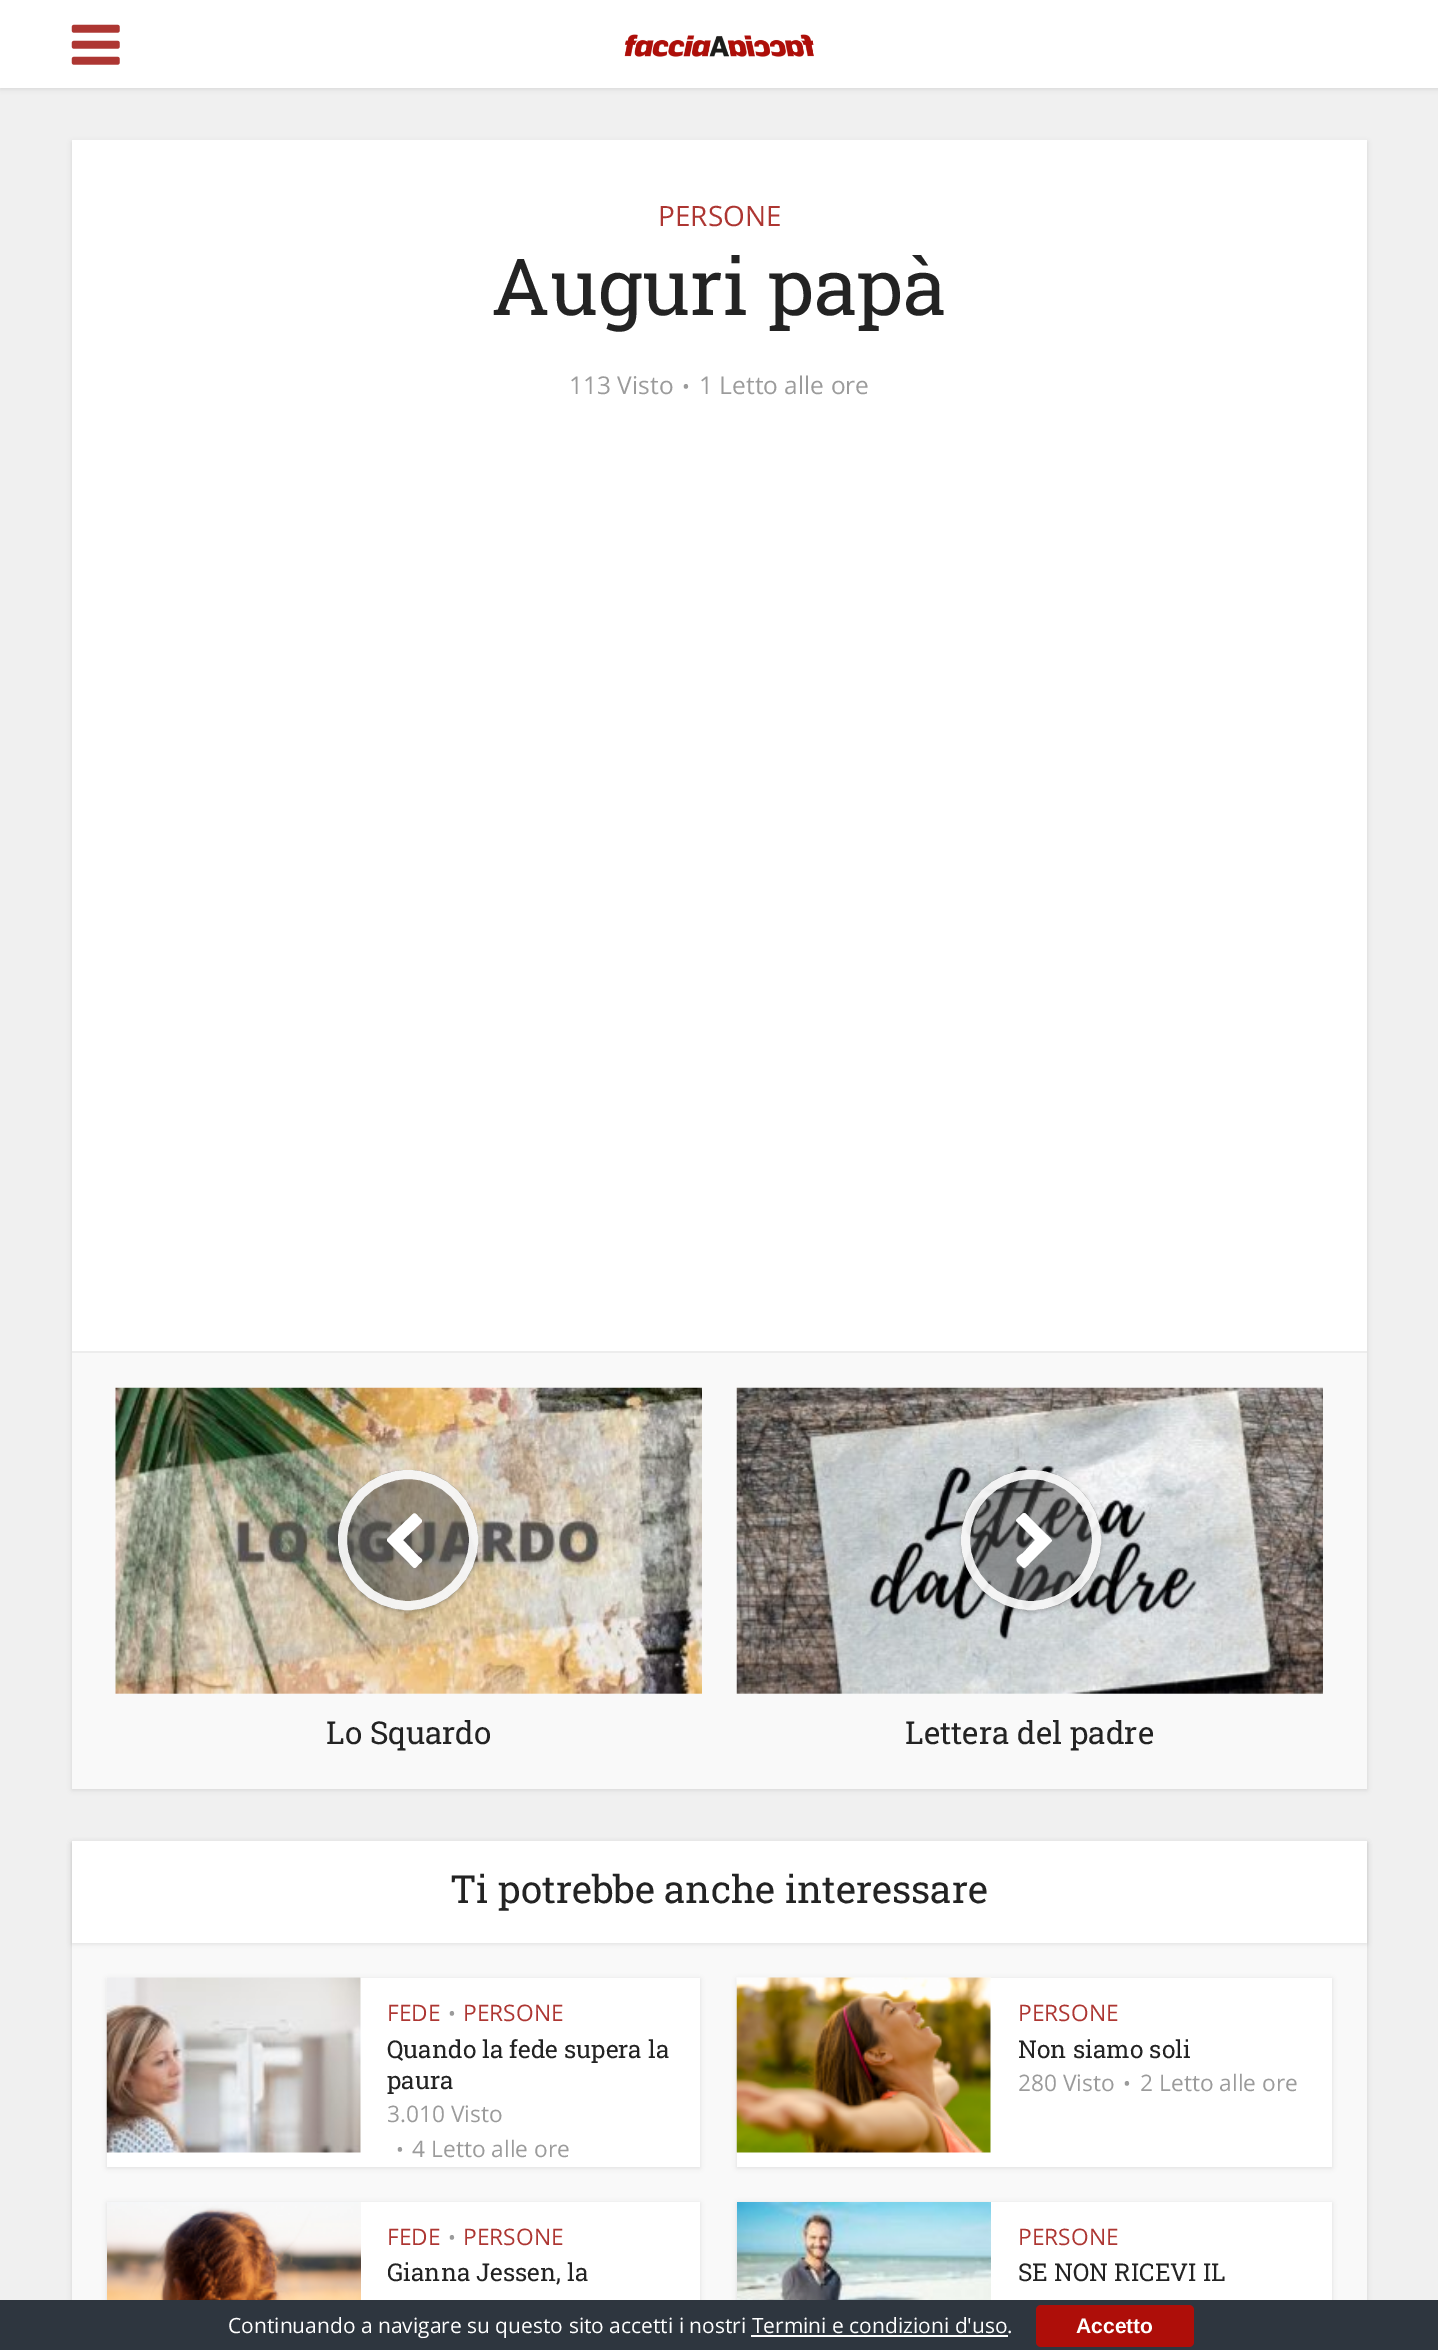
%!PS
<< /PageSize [1438 2350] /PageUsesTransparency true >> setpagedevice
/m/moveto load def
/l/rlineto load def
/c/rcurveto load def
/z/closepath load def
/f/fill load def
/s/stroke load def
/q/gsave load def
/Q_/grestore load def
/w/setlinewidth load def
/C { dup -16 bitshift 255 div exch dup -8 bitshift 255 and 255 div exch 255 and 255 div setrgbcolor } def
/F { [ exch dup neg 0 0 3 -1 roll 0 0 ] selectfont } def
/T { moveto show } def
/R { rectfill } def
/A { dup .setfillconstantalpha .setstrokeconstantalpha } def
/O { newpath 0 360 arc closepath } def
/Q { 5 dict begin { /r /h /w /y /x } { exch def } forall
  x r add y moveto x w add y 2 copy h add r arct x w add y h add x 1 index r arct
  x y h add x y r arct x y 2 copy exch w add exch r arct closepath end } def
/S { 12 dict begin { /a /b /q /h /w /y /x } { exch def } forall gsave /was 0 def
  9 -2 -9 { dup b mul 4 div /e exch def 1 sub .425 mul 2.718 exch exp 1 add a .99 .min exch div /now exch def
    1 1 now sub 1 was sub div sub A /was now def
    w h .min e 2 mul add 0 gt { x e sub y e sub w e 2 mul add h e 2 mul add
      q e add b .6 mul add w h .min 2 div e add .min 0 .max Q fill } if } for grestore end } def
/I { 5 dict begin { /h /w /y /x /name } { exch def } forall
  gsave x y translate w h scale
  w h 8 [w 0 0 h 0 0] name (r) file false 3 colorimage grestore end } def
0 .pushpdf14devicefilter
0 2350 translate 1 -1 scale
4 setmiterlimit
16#F0F0F0 C
0 0 1438 2350 R
16#000000 C
0 2 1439 87 0 2.5 .1 S
16#FFFFFF C
0 0 1438 88 R
(1.rgb) 71 24 49 41 I
(2.rgb) 624 34 190 23 I
16#000000 C
72 142 1295 1648 0 2.5 .1 S
16#FFFFFF C
72 140 1295 1211 R
/OpenSans-Regular 28 F
16#AD3632 C
(PERSONE) 658 226 T
/RobotoSlab-Regular 78.75 F
16#232323 C
(Auguri papà) 491 315 T
/OpenSans-Regular 24.5 F
16#9B9B9B C
(113 Visto) 569 394 T
/OpenSans-Regular 21 F
(•) 682 394 T
/OpenSans-Regular 24.5 F
(1 Letto alle ore) 699 394 T
16#F9F9F9 C
72 1353 1295 436 R
16#EDEDED C
72 1351 1295 2 R
(3.rgb) 115 1387 587 307 I
q
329 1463 m 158 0 l 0 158 l -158 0 l z 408 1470 m 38.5 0 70 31.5 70 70 c 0 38.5 -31.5 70 -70 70 c -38.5 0 -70 -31.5 -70 -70 c 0 -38.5 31.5 -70 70 -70 c z eoclip newpath
16#000000 C
338 1472 140 140 70 2.5 .2 S
Q_
0.5 A
16#4A4A4A C
408 1540 70 O f
0.9 A
16#FFFFFF C
9 w
408 1540 65.5 O s
1 A
422 1522 m -19 18 l 15 16 l 5 4 6 4 1 8 c -5 6 -4 5 -10 -1 c -22 -22 l 0 -2 l 26 -25 l 2 -2 4 1 5 2 c 4 4 l 0 1 0 2 0 2 c z f
/RobotoSlab-Regular 31.5 F
16#232323 C
(Lo Squardo) 326 1744 T
(4.rgb) 736 1387 587 307 I
q
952 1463 m 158 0 l 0 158 l -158 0 l z 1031 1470 m 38.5 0 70 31.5 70 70 c 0 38.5 -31.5 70 -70 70 c -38.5 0 -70 -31.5 -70 -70 c 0 -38.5 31.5 -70 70 -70 c z eoclip newpath
16#000000 C
961 1472 140 140 70 2.5 .2 S
Q_
0.5 A
16#4A4A4A C
1031 1540 70 O f
0.9 A
16#FFFFFF C
1031 1540 65.5 O s
1 A
1051 1542 m -21 21 l -7 7 -5 6 -12 0 c -4 -5 1 -7 5 -10 c 12 -13 l -19 -19 l 0 -2 2 -3 3 -4 c 6 -6 5 -5 11 1 c 17 17 l 0 0 5 4 5 6 c z f
16#232323 C
(Lettera del padre) 905 1744 T
16#000000 C
72 1843 1295 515 0 2.5 .1 S
16#F9F9F9 C
72 1943 1295 357 R
16#000000 C
72 1843 1295 101 0 2.5 .1 S
16#FFFFFF C
72 1841 1295 102 R
/RobotoSlab-Regular 38.5 F
16#232323 C
(Ti potrebbe anche interessare) 450 1903 T
16#000000 C
107 1979 593 189 0 2.5 .1 S
16#FFFFFF C
107 1978 593 189 R
(5.rgb) 106 1977 255 176 I
/OpenSans-Regular 22.75 F
16#AD3632 C
(FEDE) 387 2021 T
/OpenSans-Regular 21 F
16#9B9B9B C
(•) 448 2021 T
/OpenSans-Regular 22.75 F
16#AD3632 C
(PERSONE) 463 2021 T
/RobotoSlab-Regular 24.5 F
16#232323 C
(Quando la fede supera la) 387 2058 T
(paura) 387 2089 T
/OpenSans-Regular 22.75 F
16#9B9B9B C
(3.010 Visto) 387 2122 T
/OpenSans-Regular 21 F
(•) 396 2157 T
/OpenSans-Regular 22.75 F
(4 Letto alle ore) 412 2157 T
16#000000 C
737 1979 595 189 0 2.5 .1 S
16#FFFFFF C
737 1978 595 189 R
(6.rgb) 736 1977 255 176 I
16#AD3632 C
(PERSONE) 1018 2021 T
/RobotoSlab-Regular 24.5 F
16#232323 C
(Non siamo soli) 1018 2058 T
/OpenSans-Regular 22.75 F
16#9B9B9B C
(280 Visto) 1018 2091 T
/OpenSans-Regular 21 F
(•) 1123 2091 T
/OpenSans-Regular 22.75 F
(2 Letto alle ore) 1140 2091 T
16#000000 C
107 2203 593 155 0 2.5 .1 S
16#FFFFFF C
361 2202 339 98 R
(7.rgb) 107 2202 254 98 I
16#AD3632 C
(FEDE) 387 2245 T
/OpenSans-Regular 21 F
16#9B9B9B C
(•) 448 2245 T
/OpenSans-Regular 22.75 F
16#AD3632 C
(PERSONE) 463 2245 T
/RobotoSlab-Regular 24.5 F
16#232323 C
(Gianna Jessen, la) 387 2281 T
16#000000 C
737 2203 595 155 0 2.5 .1 S
16#FFFFFF C
991 2202 341 98 R
(8.rgb) 737 2202 254 98 I
/OpenSans-Regular 22.75 F
16#AD3632 C
(PERSONE) 1018 2245 T
/RobotoSlab-Regular 24.5 F
16#232323 C
(SE NON RICEVI IL) 1018 2281 T
16#2E363F C
0 2300 1438 50 R
/OpenSans-Regular 21 F
16#FFFFFF C
(Continuando a navigare su questo sito accetti i nostri Termini e condizioni d'uso.) 228 2333 T
16#AE0E09 C
1036 2305 158 42 5 Q f
/LiberationSans-Bold 21 F
16#FFFFFF C
(Accetto) 1076 2333 T
751 2335 257 2 R
.poppdf14devicefilter showpage
